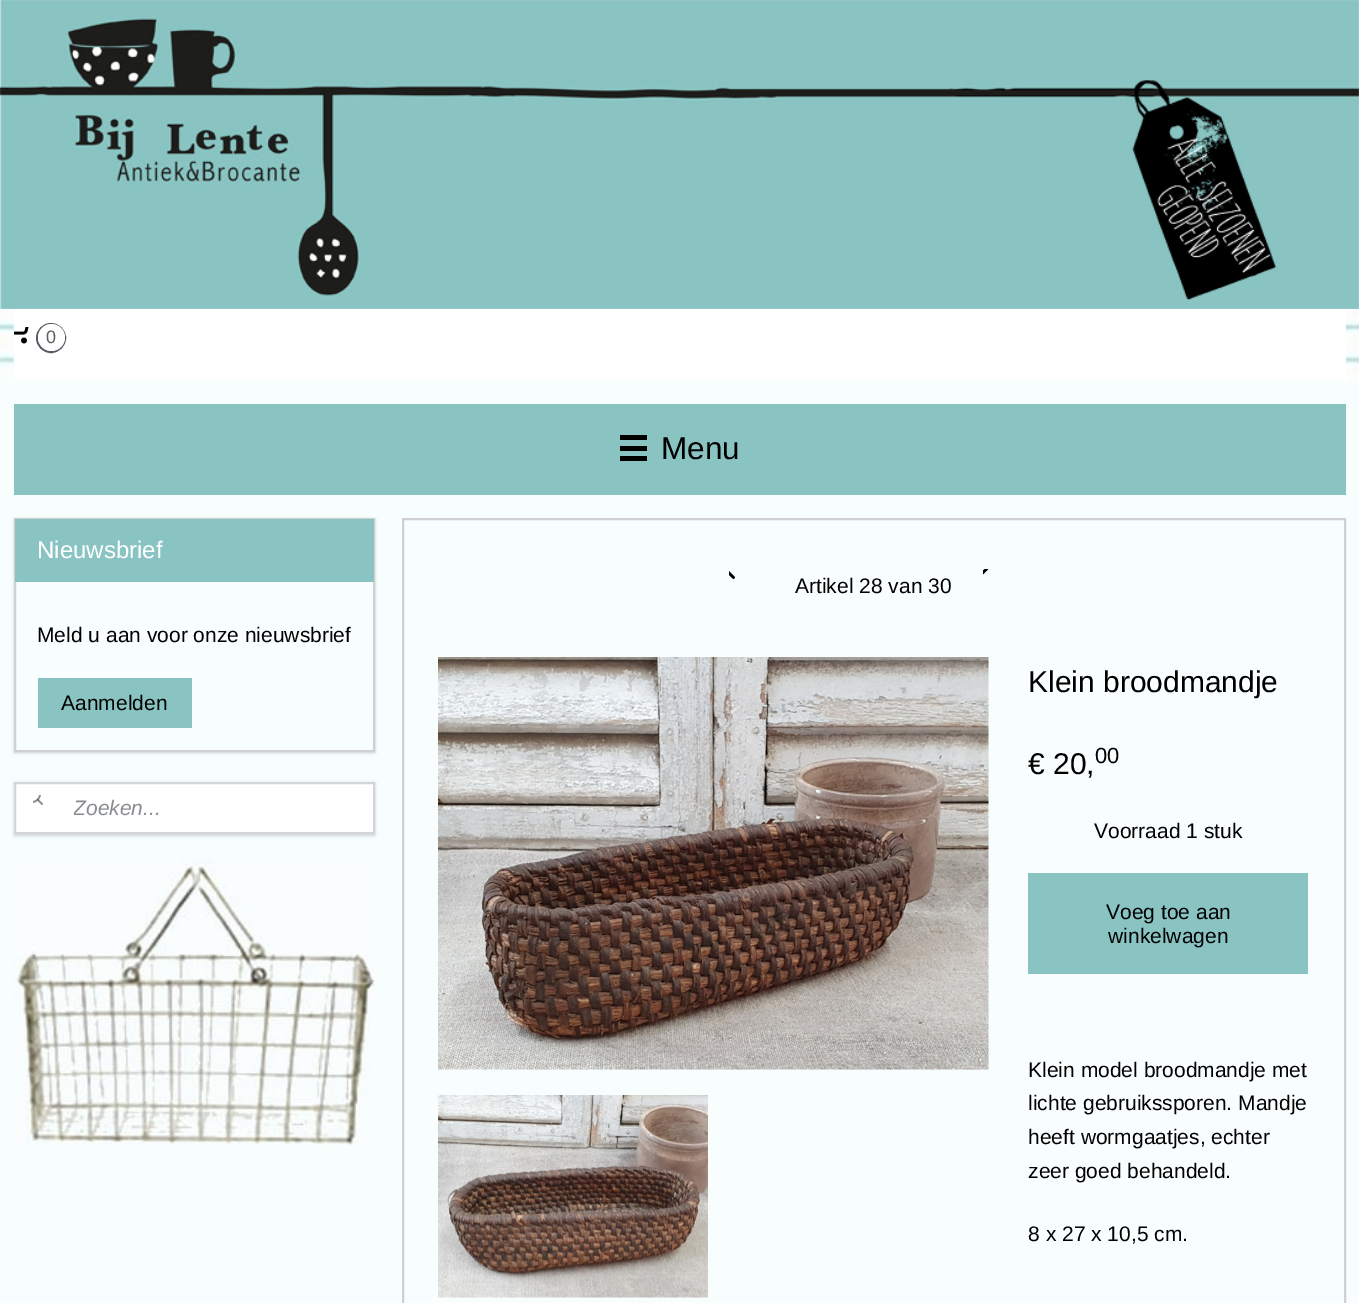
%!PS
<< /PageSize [1359 1303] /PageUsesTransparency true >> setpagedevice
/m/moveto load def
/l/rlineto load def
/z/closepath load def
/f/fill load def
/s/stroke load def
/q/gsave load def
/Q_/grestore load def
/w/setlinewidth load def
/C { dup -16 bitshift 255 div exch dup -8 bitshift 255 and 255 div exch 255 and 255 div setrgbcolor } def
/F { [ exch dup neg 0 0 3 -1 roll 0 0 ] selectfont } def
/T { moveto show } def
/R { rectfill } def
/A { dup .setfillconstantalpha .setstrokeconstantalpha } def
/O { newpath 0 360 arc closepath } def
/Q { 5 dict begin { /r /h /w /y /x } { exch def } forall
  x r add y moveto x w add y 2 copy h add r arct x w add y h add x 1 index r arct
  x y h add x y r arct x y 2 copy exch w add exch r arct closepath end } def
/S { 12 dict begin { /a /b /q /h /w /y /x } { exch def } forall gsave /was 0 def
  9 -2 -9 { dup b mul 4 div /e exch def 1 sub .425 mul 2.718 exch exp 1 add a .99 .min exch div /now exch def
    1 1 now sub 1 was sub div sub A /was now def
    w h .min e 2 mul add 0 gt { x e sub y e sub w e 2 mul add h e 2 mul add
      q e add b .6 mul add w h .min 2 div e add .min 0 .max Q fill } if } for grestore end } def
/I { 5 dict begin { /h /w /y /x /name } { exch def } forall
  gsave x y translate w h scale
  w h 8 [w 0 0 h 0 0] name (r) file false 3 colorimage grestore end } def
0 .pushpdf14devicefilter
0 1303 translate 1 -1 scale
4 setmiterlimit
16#FFFFFF C
0 0 1359 1303 R
(1.rgb) 0 309 1359 72 I
(2.rgb) 0 0 1359 309 I
14 309 1332 72 R
(3.rgb) 14 327 15 17 I
16#575B62 C
2 w
51 338 14 O s
16#FFFFFF C
51.5 337.5 13.5 O f
/LiberationSans-Regular 18 F
16#575B62 C
(0) 46 343 T
16#F8FDFD C
0 381 1359 922 R
16#89C4C2 C
14 404 1332 91 R
16#000001 C
620 446 27 5 R
620 435 27 5 R
620 456 27 5 R
/LiberationSans-Regular 31.5 F
(Menu) 661 459 T
16#000000 C
14 519 361 234 0 1.5 .15 S
16#F8FDFD C
16 582 357 168 R
16#D0D0D0 C
15 519 359 232 rectstroke
16#89C4C2 C
15 519 359 63 R
/LiberationSans-Regular 24 F
16#FFFFFF C
(Nieuwsbrief) 37 558 T
/LiberationSans-Regular 21 F
16#000001 C
(Meld u aan voor onze nieuwsbrief) 37 642 T
16#89C4C2 C
38 678 154 50 R
16#000001 C
(Aanmelden) 61 710 T
16#000000 C
14 783 361 53 0 1.5 .15 S
16#FFFFFF C
15 783 m 359 0 l 0 50 l -359 0 l z q f Q_
16#D3D5D9 C
s
(4.rgb) 33 795 10 10 I
q
74 795 283 24 rectclip
/LiberationSans-Italic 21 F
16#898C91 C
(Zoeken...) 73 815 T
Q_
(5.rgb) 14 859 361 286 I
16#D0D0D0 C
403 519 942 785 rectstroke
(6.rgb) 729 571 6 8 I
(7.rgb) 983 569 6 6 I
16#000001 C
(Artikel 28 van 30) 795 593 T
(8.rgb) 438 657 551 413 I
(9.rgb) 438 1095 270 203 I
/LiberationSans-Regular 30 F
(Klein broodmandje) 1028 692 T
(€ 20,) 1028 774 T
/LiberationSans-Regular 22 F
(00) 1095 763 T
/LiberationSans-Regular 21 F
(Voorraad 1 stuk) 1094 838 T
16#89C4C2 C
1028 873 280 101 R
16#000001 C
(Voeg toe aan) 1106 919 T
(winkelwagen) 1108 943 T
(Klein model broodmandje met) 1028 1077 T
(lichte gebruikssporen. Mandje) 1028 1110 T
(heeft wormgaatjes, echter) 1028 1144 T
(zeer goed behandeld.) 1028 1178 T
(8 x 27 x 10,5 cm.) 1028 1241 T
.poppdf14devicefilter showpage
